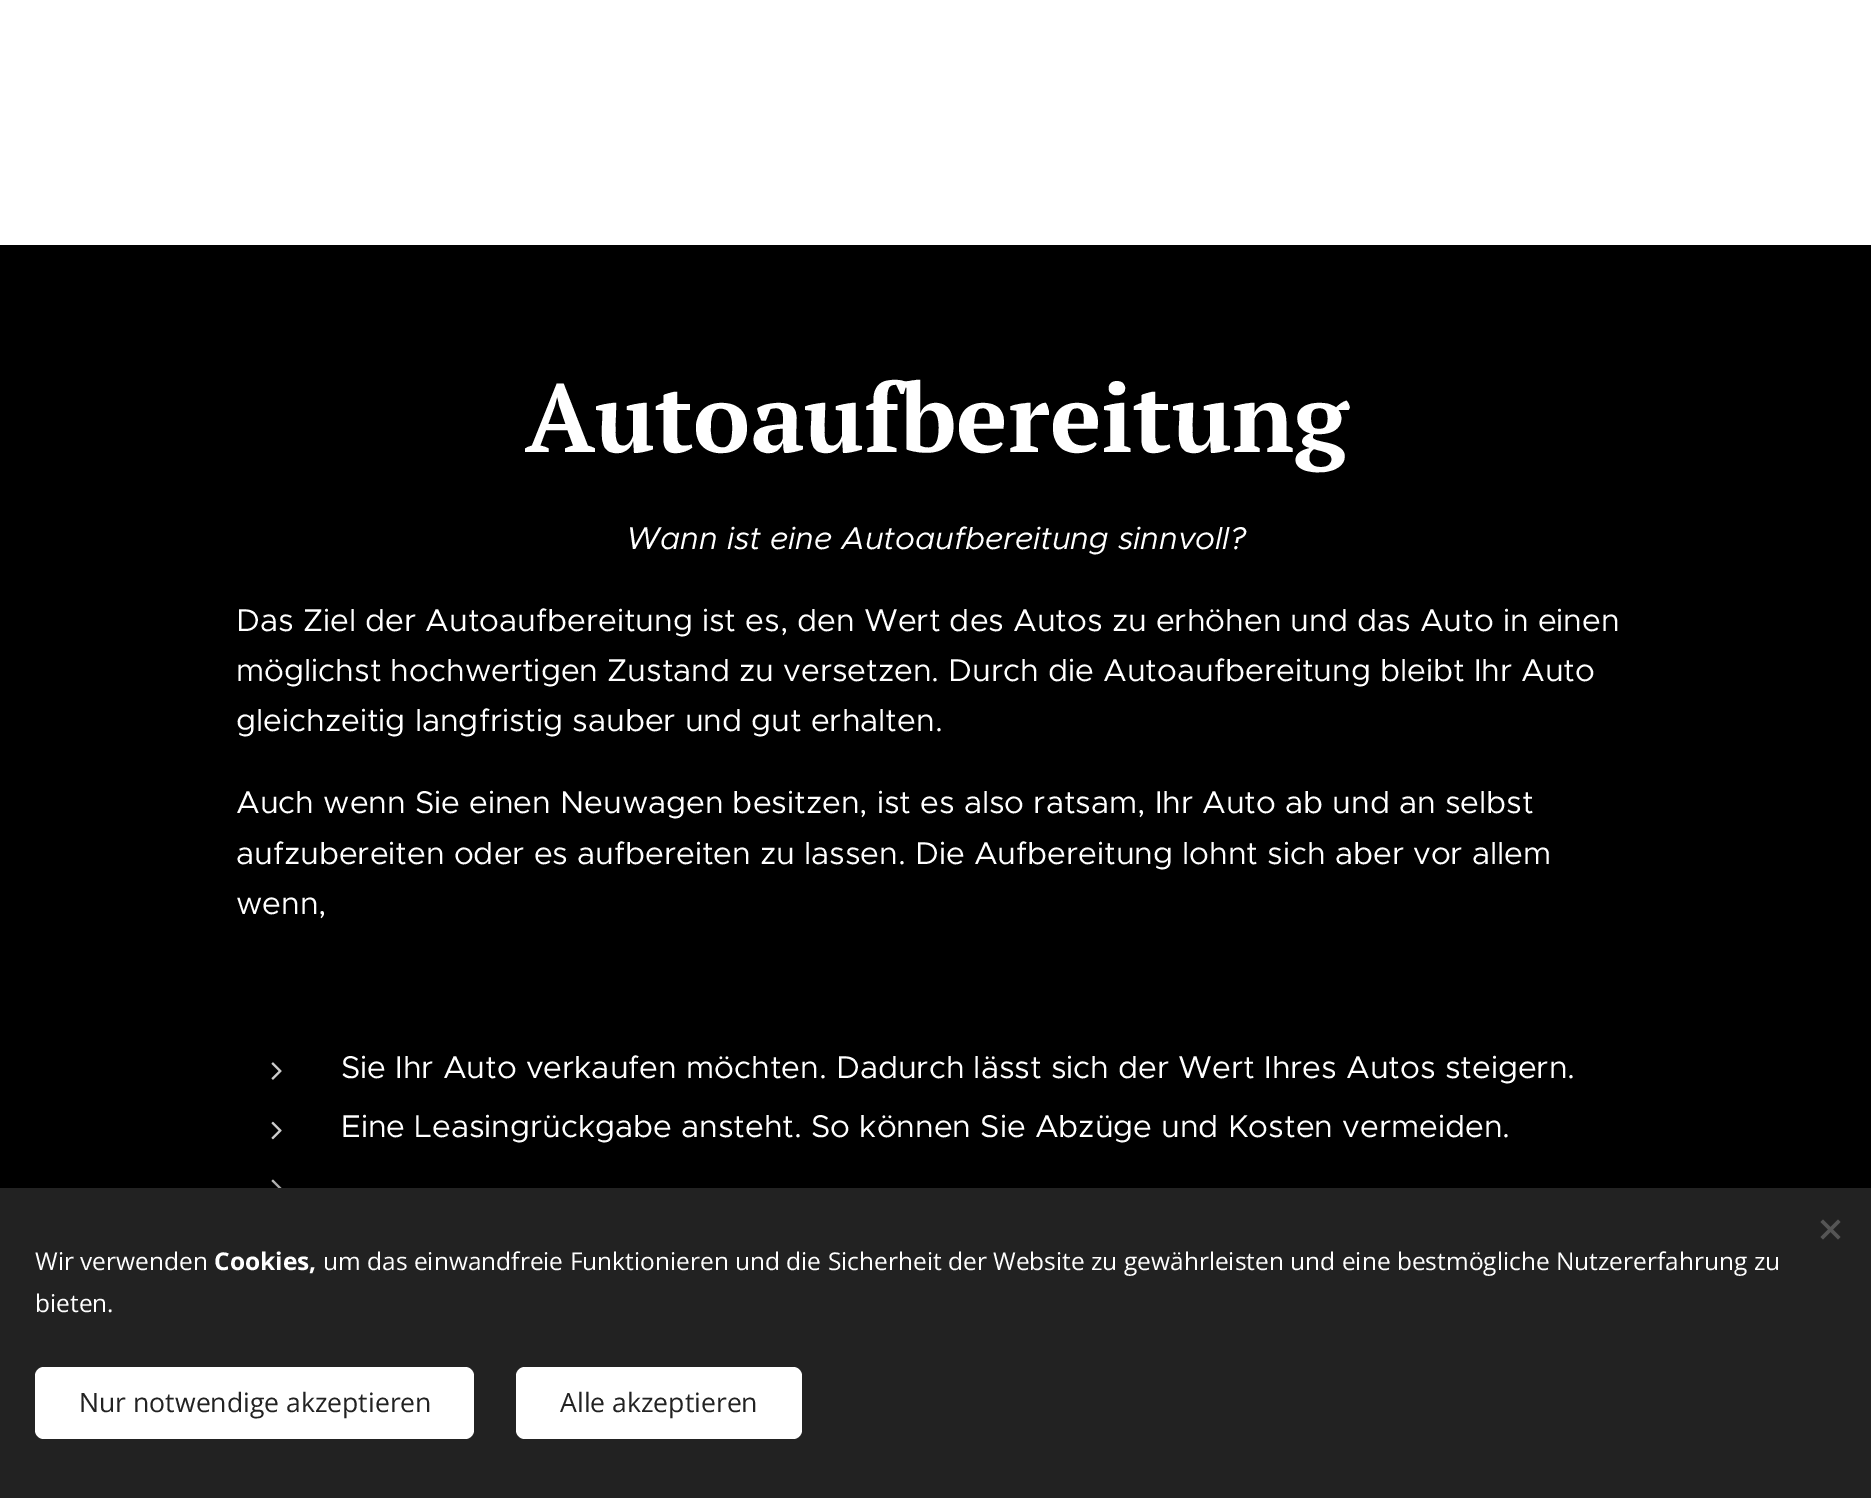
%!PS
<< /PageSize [1871 1498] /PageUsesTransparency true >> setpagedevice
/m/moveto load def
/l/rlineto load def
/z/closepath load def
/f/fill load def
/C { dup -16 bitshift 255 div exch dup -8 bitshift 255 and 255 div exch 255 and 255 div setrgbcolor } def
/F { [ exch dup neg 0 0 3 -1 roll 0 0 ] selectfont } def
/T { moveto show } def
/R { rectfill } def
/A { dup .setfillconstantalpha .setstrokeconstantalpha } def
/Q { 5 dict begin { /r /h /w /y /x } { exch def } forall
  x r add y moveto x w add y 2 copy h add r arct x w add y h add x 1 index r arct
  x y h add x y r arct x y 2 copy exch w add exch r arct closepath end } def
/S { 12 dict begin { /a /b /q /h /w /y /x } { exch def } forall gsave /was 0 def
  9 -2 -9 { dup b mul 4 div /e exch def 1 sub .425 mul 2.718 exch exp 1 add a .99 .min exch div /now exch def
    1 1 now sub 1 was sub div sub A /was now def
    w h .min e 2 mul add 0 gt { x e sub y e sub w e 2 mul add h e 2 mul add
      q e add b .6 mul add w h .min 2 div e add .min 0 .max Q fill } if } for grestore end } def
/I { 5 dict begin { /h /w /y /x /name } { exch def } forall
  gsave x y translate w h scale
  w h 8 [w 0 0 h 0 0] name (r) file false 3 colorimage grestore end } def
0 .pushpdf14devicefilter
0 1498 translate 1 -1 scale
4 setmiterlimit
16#FFFFFF C
0 0 1871 1498 R
16#000000 C
0 245 1871 943 R
/PTSerif-Bold 96.25 F
16#FFFFFF C
(Autoaufbereitung) 525 452 T
/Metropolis-Italic 31.5 F
(Wann ist eine Autoaufbereitung sinnvoll?) 626 549 T
/Metropolis-Regular 31.5 F
(Das Ziel der Autoaufbereitung ist es, den Wert des Autos zu erhöhen und das Auto in einen) 236 631 T
(möglichst hochwertigen Zustand zu versetzen. Durch die Autoaufbereitung bleibt Ihr Auto) 236 681 T
(gleichzeitig langfristig sauber und gut erhalten.) 236 731 T
(Auch wenn Sie einen Neuwagen besitzen, ist es also ratsam, Ihr Auto ab und an selbst) 236 813 T
(aufzubereiten oder es aufbereiten zu lassen. Die Aufbereitung lohnt sich aber vor allem) 236 864 T
(wenn,) 236 914 T
(1.rgb) 271 1062 11 18 I
(Sie Ihr Auto verkaufen möchten. Dadurch lässt sich der Wert Ihres Autos steigern.) 341 1078 T
(2.rgb) 271 1121 11 19 I
(Eine Leasingrückgabe ansteht. So können Sie Abzüge und Kosten vermeiden.) 341 1137 T
(3.rgb) 271 1179 11 9 I
16#000000 C
0 1188 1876 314 0 22 .33 S
16#222222 C
0 1188 1871 310 R
16#555555 C
1820.5 1237 m 17.5 -17.5 l 2.5 2.5 l -17.5 17.5 l z f
1823 1219.5 m 17.5 17.5 l -2.5 2.5 l -17.5 -17.5 l z f
/OpenSans-Regular 24.5 F
16#FFFFFF C
(Wir verwenden) 35 1270 T
/OpenSans-Bold 24.5 F
(Cookies,) 214 1270 T
/OpenSans-Regular 24.5 F
(um das einwandfreie Funktionieren und die Sicherheit der Website zu gewährleisten und eine bestmögliche Nutzererfahrung zu) 323 1270 T
(bieten.) 35 1312 T
35 1367 439 72 9 Q f
/OpenSans-Regular 26.6 F
16#222222 C
(Nur notwendige akzeptieren) 79 1412 T
16#FFFFFF C
516 1367 286 72 9 Q f
16#222222 C
(Alle akzeptieren) 560 1412 T
.poppdf14devicefilter showpage
